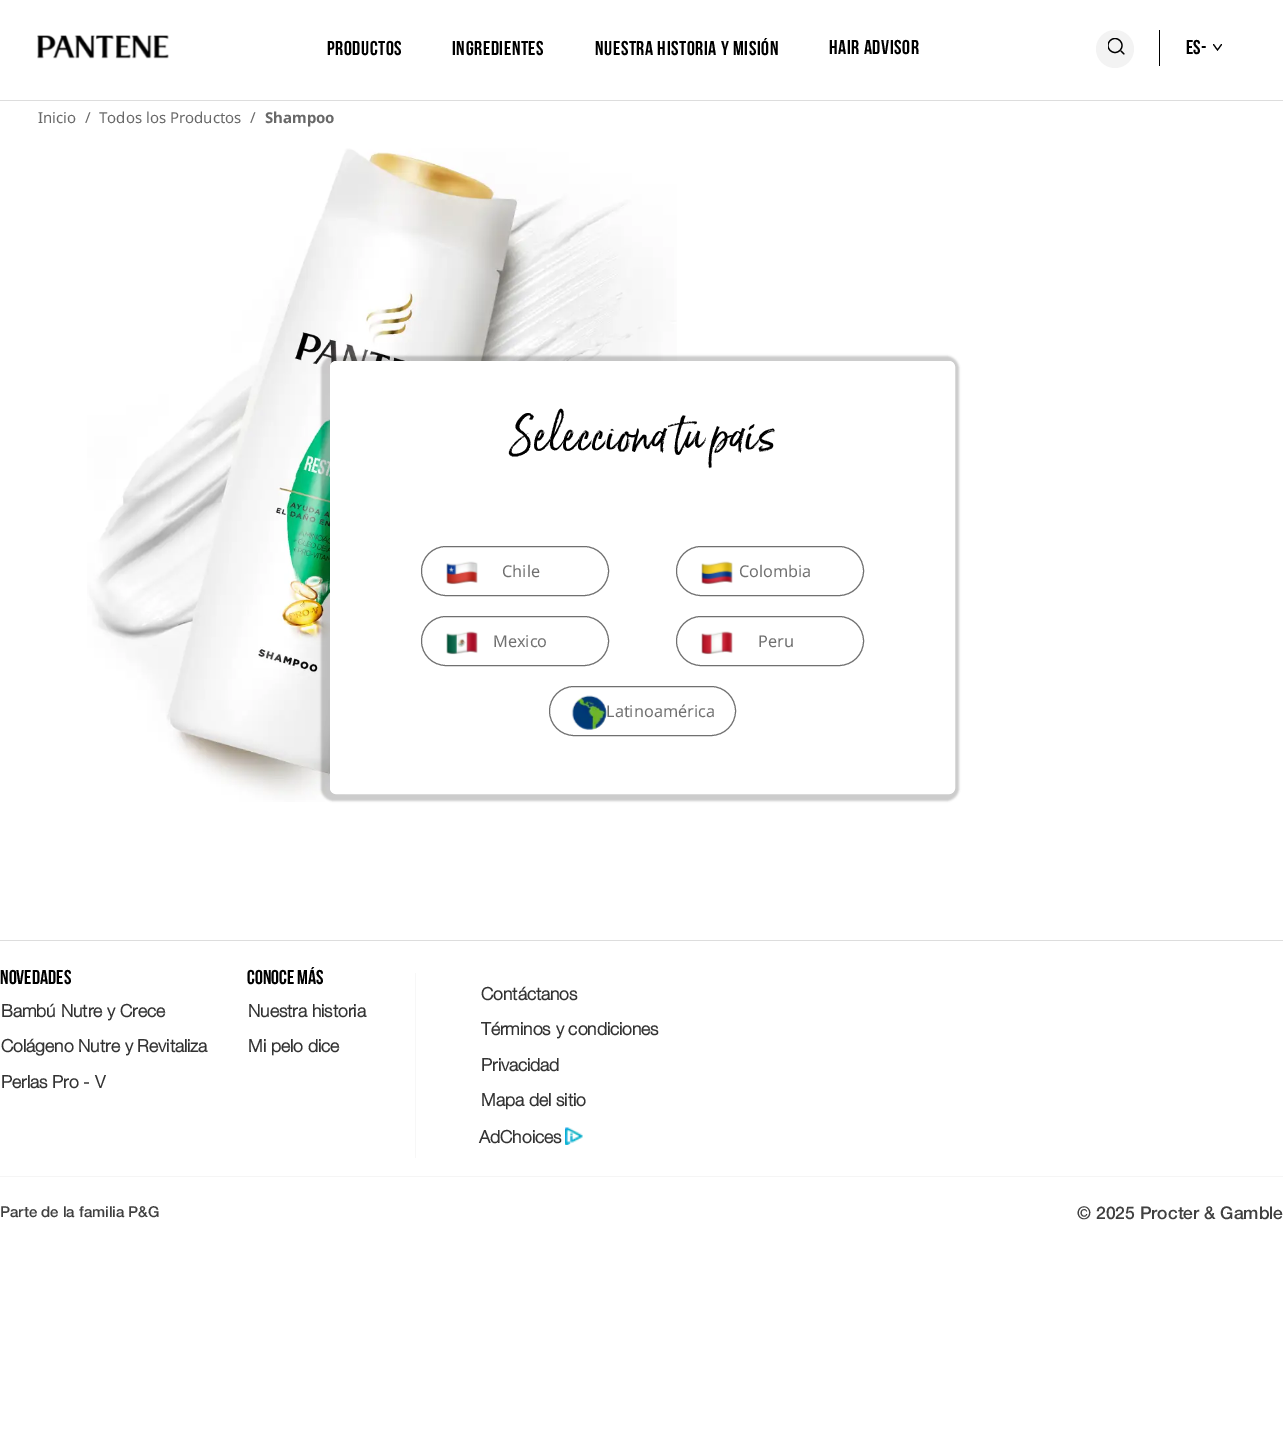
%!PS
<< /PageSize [1283 1442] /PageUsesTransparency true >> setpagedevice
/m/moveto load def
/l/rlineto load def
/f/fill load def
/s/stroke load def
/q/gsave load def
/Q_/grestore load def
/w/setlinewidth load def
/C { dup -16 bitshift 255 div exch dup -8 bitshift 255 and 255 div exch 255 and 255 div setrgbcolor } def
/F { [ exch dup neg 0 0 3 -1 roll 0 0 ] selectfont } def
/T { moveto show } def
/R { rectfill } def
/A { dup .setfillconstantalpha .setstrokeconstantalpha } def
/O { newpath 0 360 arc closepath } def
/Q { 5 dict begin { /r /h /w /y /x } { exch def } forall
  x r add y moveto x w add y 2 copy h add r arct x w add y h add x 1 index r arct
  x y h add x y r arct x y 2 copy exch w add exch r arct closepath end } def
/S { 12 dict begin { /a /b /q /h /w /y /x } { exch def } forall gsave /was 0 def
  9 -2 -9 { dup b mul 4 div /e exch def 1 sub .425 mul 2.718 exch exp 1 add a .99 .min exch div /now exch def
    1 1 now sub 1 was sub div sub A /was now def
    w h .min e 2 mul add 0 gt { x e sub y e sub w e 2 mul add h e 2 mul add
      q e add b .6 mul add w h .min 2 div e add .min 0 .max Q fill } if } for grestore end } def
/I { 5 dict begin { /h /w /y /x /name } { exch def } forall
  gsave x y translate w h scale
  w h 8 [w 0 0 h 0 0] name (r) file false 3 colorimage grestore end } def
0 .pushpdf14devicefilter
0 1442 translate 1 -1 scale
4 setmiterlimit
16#FFFFFF C
0 0 1283 1442 R
(1.rgb) 37 35 132 24 I
/BebasNeue-Bold 20 F
16#000000 C
327 55 m .6 0 (Productos) ashow
452 55 m .6 0 (Ingredientes) ashow
595 55 m .6 0 (Nuestra historia y misión) ashow
829 54 m .6 0 (Hair Advisor) ashow
16#F3F3F3 C
1115 49 19 O f
16#000000 C
1.2 w
1 setlinecap
1121 51 m 3 3 l s
q
1108 38 17 17 rectclip
0 setlinecap
1115 45.5 7 O s
Q_
1159 30 1 36 R
(ES-) 1186 54 T
1.1 w
1213.5 44.5 m 4 5.5 l 4 -5.5 l s
16#DDDDDD C
0 100 1283 1 R
/NotoSans-Regular 15 F
16#686868 C
(Inicio) 38 123 T
(/) 85 123 T
(Todos los Productos) 99 123 T
(/) 250 123 T
/NotoSans-Bold 15 F
(Shampoo) 265 123 T
(2.rgb) 87 148 590 654 I
16#000000 C
321 356 638 445 13 1 .2 S
16#FFFFFF C
330.5 361.5 624 432 5.5 Q q f Q_
1 w
0 setlinecap
s
/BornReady-Regular 45 F
16#000000 C
(Selecciona tu país) 508 449 T
16#707070 C
421.5 546.5 187 49 24.5 Q s
(3.rgb) 446 561 32 24 I
/NotoSans-Regular 16.25 F
(Chile) 502 577 T
676.5 546.5 187 49 24.5 Q s
(4.rgb) 701 561 32 24 I
(Colombia) 739 577 T
421.5 616.5 187 49 24.5 Q s
(5.rgb) 446 631 32 24 I
(Mexico) 493 647 T
676.5 616.5 187 49 24.5 Q s
(6.rgb) 701 631 32 24 I
(Peru) 758 647 T
549.5 686.5 186 49 24.5 Q s
(7.rgb) 571 695 36 35 I
(Latinoamérica) 606 717 T
16#DDDDDD C
0 940 1283 1 R
16#F5F5F5 C
0 1176 1283 1 R
/BebasNeue-Bold 20 F
16#000000 C
(Novedades) 0 984 T
/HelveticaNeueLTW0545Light-Bold 17.5 F
16#333333 C
(Bambú Nutre y Crece) 1 1017 T
(Colágeno Nutre y Revitaliza) 1 1052 T
(Perlas Pro - V) 1 1088 T
/BebasNeue-Bold 20 F
16#000000 C
(Conoce más) 247 984 T
/HelveticaNeueLTW0545Light-Bold 17.5 F
16#333333 C
(Nuestra historia) 248 1017 T
(Mi pelo dice) 248 1052 T
16#F7F7F7 C
415 973 1 185 R
16#333333 C
(Contáctanos) 481 1000 T
(Términos y condiciones) 481 1035 T
(Privacidad) 481 1071 T
(Mapa del sitio) 481 1106 T
(AdChoices) 479 1143 T
(8.rgb) 565 1127 18 18 I
/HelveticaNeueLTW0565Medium-Medium 15 F
16#404040 C
(Parte de la familia P&G) 0 1217 T
/HelveticaNeueLTW0565Medium-Medium 17.5 F
(© 2025 Procter & Gamble) 1077 1219 T
.poppdf14devicefilter showpage
